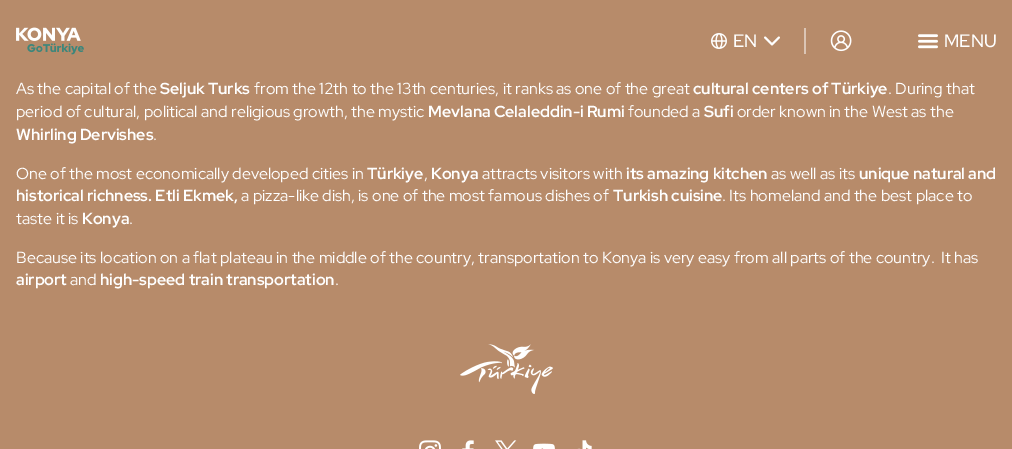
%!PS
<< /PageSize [1012 449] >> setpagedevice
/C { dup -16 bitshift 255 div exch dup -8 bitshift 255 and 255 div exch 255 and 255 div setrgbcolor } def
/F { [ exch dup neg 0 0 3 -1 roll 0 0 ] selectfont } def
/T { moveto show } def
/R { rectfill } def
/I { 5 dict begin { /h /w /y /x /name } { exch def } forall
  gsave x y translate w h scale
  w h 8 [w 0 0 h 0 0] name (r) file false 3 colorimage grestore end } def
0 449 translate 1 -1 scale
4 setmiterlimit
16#B78B6A C
0 0 1012 449 R
(1.rgb) 16 27 68 28 I
(2.rgb) 711 33 16 16 I
/RedHatDisplay-Medium 18 F
16#FFFFFF C
(EN) 733 47 T
(3.rgb) 764 36 16 10 I
16#DBC5B5 C
804 28 2 26 R
(4.rgb) 830 30 22 22 I
(5.rgb) 918 34 20 15 I
16#FFFFFF C
(MENU) 944 47 T
/RedHatDisplay-Regular 16 F
(As the capital of the) 16 94 T
/RedHatDisplay-Bold 16 F
(Seljuk Turks) 160 94 T
/RedHatDisplay-Regular 16 F
(from the 12th to the 13th centuries, it ranks as one of the great) 254 94 T
/RedHatDisplay-Bold 16 F
(cultural centers of Türkiye) 693 94 T
/RedHatDisplay-Regular 16 F
(. During that) 888 94 T
(period of cultural, political and religious growth, the mystic) 16 117 T
/RedHatDisplay-Bold 16 F
(Mevlana Celaleddin-i Rumi) 428 117 T
/RedHatDisplay-Regular 16 F
(founded a) 628 117 T
/RedHatDisplay-Bold 16 F
(Sufi) 704 117 T
/RedHatDisplay-Regular 16 F
(order known in the West as the) 737 117 T
/RedHatDisplay-Bold 16 F
(Whirling Dervishes) 16 140 T
/RedHatDisplay-Regular 16 F
(.) 153 140 T
(One of the most economically developed cities in) 16 179 T
/RedHatDisplay-Bold 16 F
(Türkiye) 367 179 T
/RedHatDisplay-Regular 16 F
(,) 424 179 T
/RedHatDisplay-Bold 16 F
(Konya) 431 179 T
/RedHatDisplay-Regular 16 F
(attracts visitors with) 482 179 T
/RedHatDisplay-Bold 16 F
(its amazing kitchen) 626 179 T
/RedHatDisplay-Regular 16 F
(as well as its) 771 179 T
/RedHatDisplay-Bold 16 F
(unique natural and) 859 179 T
(historical richness. Etli Ekmek,) 16 201 T
/RedHatDisplay-Regular 16 F
(a pizza-like dish, is one of the most famous dishes of) 241 201 T
/RedHatDisplay-Bold 16 F
(Turkish cuisine) 613 201 T
/RedHatDisplay-Regular 16 F
(. Its homeland and the best place to) 722 201 T
(taste it is) 16 224 T
/RedHatDisplay-Bold 16 F
(Konya) 82 224 T
/RedHatDisplay-Regular 16 F
(.) 129 224 T
(Because its location on a flat plateau in the middle of the country, transportation to Konya is very easy from all parts of the country.  It has) 16 263 T
/RedHatDisplay-Bold 16 F
(airport) 16 285 T
/RedHatDisplay-Regular 16 F
(and) 70 285 T
/RedHatDisplay-Bold 16 F
(high-speed train transportation) 100 285 T
/RedHatDisplay-Regular 16 F
(.) 335 285 T
(6.rgb) 460 344 93 50 I
(7.rgb) 419 440 22 9 I
(8.rgb) 462 440 12 9 I
(9.rgb) 495 440 22 9 I
(10.rgb) 533 443 22 6 I
(11.rgb) 577 440 15 9 I
showpage
